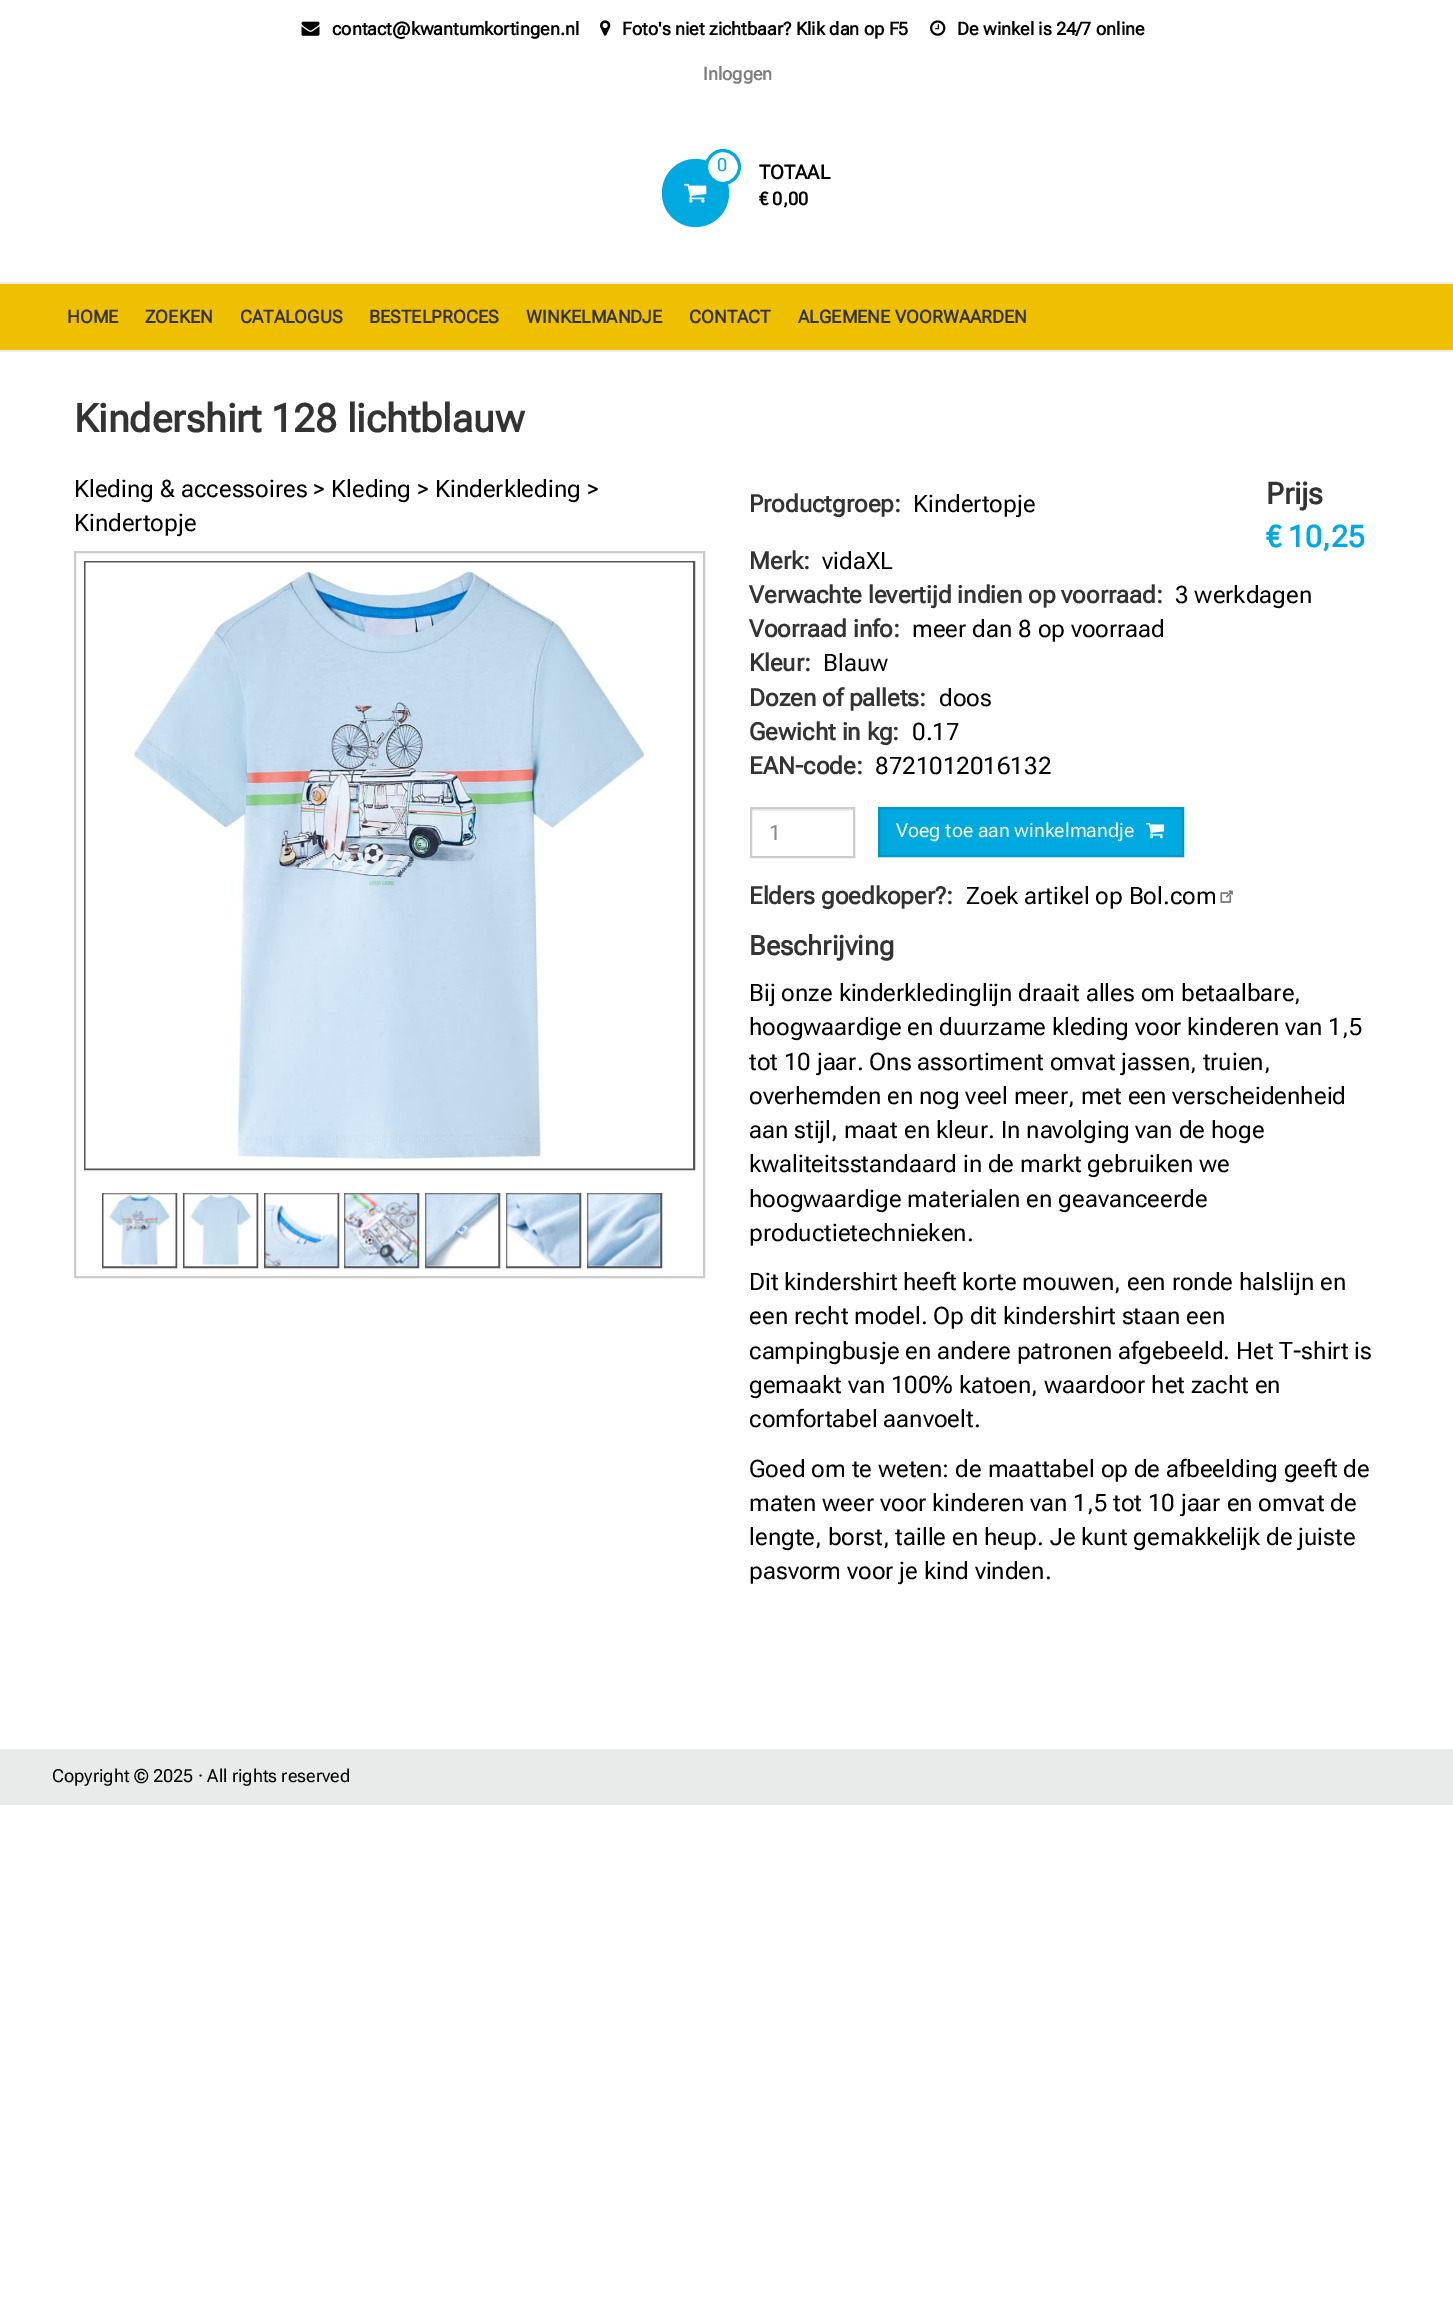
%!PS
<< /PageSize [1453 2315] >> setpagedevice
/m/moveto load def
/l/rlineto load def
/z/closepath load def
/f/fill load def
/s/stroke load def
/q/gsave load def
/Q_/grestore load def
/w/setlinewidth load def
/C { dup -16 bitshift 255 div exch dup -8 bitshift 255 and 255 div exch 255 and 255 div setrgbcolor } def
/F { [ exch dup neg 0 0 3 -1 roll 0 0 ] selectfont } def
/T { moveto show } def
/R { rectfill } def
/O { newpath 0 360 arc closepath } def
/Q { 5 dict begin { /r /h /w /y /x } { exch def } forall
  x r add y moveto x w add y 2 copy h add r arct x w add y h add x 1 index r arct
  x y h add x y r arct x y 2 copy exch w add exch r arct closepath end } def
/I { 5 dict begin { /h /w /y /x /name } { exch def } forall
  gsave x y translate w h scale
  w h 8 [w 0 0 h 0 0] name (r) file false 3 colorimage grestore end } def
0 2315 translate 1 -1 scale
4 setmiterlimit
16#FFFFFF C
0 0 1453 2315 R
(1.rgb) 301 21 19 15 I
/RobotoFlex-Bold 18 F
16#000000 C
(contact@kwantumkortingen.nl) 332 35 T
(2.rgb) 600 20 11 16 I
(Foto's niet zichtbaar? Klik dan op F5) 622 35 T
(3.rgb) 930 20 16 16 I
(De winkel is 24/7 online) 957 35 T
16#7F7D7D C
(Inloggen) 703 80 T
16#00A9E0 C
662 159 67 68 33.5 Q f
(4.rgb) 684 183 23 20 I
16#FFFFFF C
723 167 16.5 O q f Q_
16#00A9E0 C
3 w
s
/RobotoFlex-Regular 18 F
(0) 717 171 T
/RobotoFlex-Bold 19.5 F
16#000000 C
(TOTAAL) 759 179 T
/RobotoFlex-Bold 18 F
(€ 0,00) 759 205 T
16#EFC000 C
0 284 1453 66 R
16#EEEEEE C
0 282 1453 2 R
0 350 1453 2 R
16#333333 C
(HOME) 67 323 T
(ZOEKEN) 145 323 T
(CATALOGUS) 240 323 T
(BESTELPROCES) 369 323 T
(WINKELMANDJE) 526 323 T
(CONTACT) 689 323 T
(ALGEMENE VOORWAARDEN) 798 323 T
/RobotoFlex-Bold 39 F
(Kindershirt 128 lichtblauw) 74 432 T
/RobotoFlex-Regular 24 F
16#000000 C
(Kleding & accessoires > Kleding > Kinderkleding >) 74 497 T
(Kindertopje) 74 531 T
16#CCCCCC C
2 w
75 552 629 725 rectstroke
16#555555 C
85 562 609 607 rectstroke
(5.rgb) 85 562 609 607 I
103 1194 73 73 rectstroke
(6.rgb) 103 1193 73 74 I
184 1194 73 73 rectstroke
(7.rgb) 184 1193 73 74 I
265 1194 73 73 rectstroke
(8.rgb) 265 1193 73 74 I
345 1194 73 73 rectstroke
(9.rgb) 344 1193 74 74 I
426 1194 73 73 rectstroke
(10.rgb) 425 1193 74 74 I
507 1194 73 73 rectstroke
(11.rgb) 506 1193 74 74 I
588 1194 73 73 rectstroke
(12.rgb) 587 1193 74 74 I
/RobotoFlex-Bold 24 F
16#333333 C
(Productgroep:) 749 512 T
/RobotoFlex-Regular 24 F
16#000000 C
(Kindertopje) 913 512 T
/RobotoFlex-Bold 30 F
16#333333 C
(Prijs) 1266 504 T
16#00A9E0 C
(€ 10,25) 1266 547 T
/RobotoFlex-Bold 24 F
16#333333 C
(Merk:) 749 569 T
/RobotoFlex-Regular 24 F
16#000000 C
(vidaXL) 822 569 T
/RobotoFlex-Bold 24 F
16#333333 C
(Verwachte levertijd indien op voorraad:) 749 603 T
/RobotoFlex-Regular 24 F
16#000000 C
(3 werkdagen) 1175 603 T
/RobotoFlex-Bold 24 F
16#333333 C
(Voorraad info:) 749 637 T
/RobotoFlex-Regular 24 F
16#000000 C
(meer dan 8 op voorraad) 912 637 T
/RobotoFlex-Bold 24 F
16#333333 C
(Kleur:) 749 671 T
/RobotoFlex-Regular 24 F
16#000000 C
(Blauw) 823 671 T
/RobotoFlex-Bold 24 F
16#333333 C
(Dozen of pallets:) 749 706 T
/RobotoFlex-Regular 24 F
16#000000 C
(doos) 939 706 T
/RobotoFlex-Bold 24 F
16#333333 C
(Gewicht in kg:) 749 740 T
/RobotoFlex-Regular 24 F
16#000000 C
(0.17) 912 740 T
/RobotoFlex-Bold 24 F
16#333333 C
(EAN-code:) 749 774 T
/RobotoFlex-Regular 24 F
16#000000 C
(8721012016132) 875 774 T
16#ECECEC C
752 809 102 2 R
16#CCCCCC C
751 808 103 49 rectstroke
/RobotoFlex-Regular 21 F
16#888888 C
(1) 769 840 T
16#00A9E0 C
879 808 m 304 0 l 0 48 l -304 0 l z q f Q_
16#0096C7 C
s
/RobotoFlex-Regular 19.5 F
16#FFFFFF C
(Voeg toe aan winkelmandje) 896 837 T
(13.rgb) 1146 823 19 16 I
/RobotoFlex-Bold 24 F
16#333333 C
(Elders goedkoper?:) 749 904 T
/RobotoFlex-Regular 24 F
16#000000 C
(Zoek artikel op Bol.com) 966 904 T
(14.rgb) 1220 890 13 13 I
/RobotoFlex-Bold 27 F
16#333333 C
(Beschrijving) 749 955 T
/RobotoFlex-Regular 24 F
16#000000 C
(Bij onze kinderkledinglijn draait alles om betaalbare,) 749 1001 T
(hoogwaardige en duurzame kleding voor kinderen van 1,5) 749 1035 T
(tot 10 jaar. Ons assortiment omvat jassen, truien,) 749 1070 T
(overhemden en nog veel meer, met een verscheidenheid) 749 1104 T
(aan stijl, maat en kleur. In navolging van de hoge) 749 1138 T
(kwaliteitsstandaard in de markt gebruiken we) 749 1172 T
(hoogwaardige materialen en geavanceerde) 749 1207 T
(productietechnieken.) 749 1241 T
(Dit kindershirt heeft korte mouwen, een ronde halslijn en) 749 1290 T
(een recht model. Op dit kindershirt staan een) 749 1324 T
(campingbusje en andere patronen afgebeeld. Het T-shirt is) 749 1359 T
(gemaakt van 100% katoen, waardoor het zacht en) 749 1393 T
(comfortabel aanvoelt.) 749 1427 T
(Goed om te weten: de maattabel op de afbeelding geeft de) 749 1477 T
(maten weer voor kinderen van 1,5 tot 10 jaar en omvat de) 749 1511 T
(lengte, borst, taille en heup. Je kunt gemakkelijk de juiste) 749 1545 T
(pasvorm voor je kind vinden.) 749 1579 T
16#E9EBEB C
0 1749 1453 56 R
/RobotoFlex-Regular 18 F
16#000000 C
(Copyright © 2025 · All rights reserved) 52 1782 T
showpage
